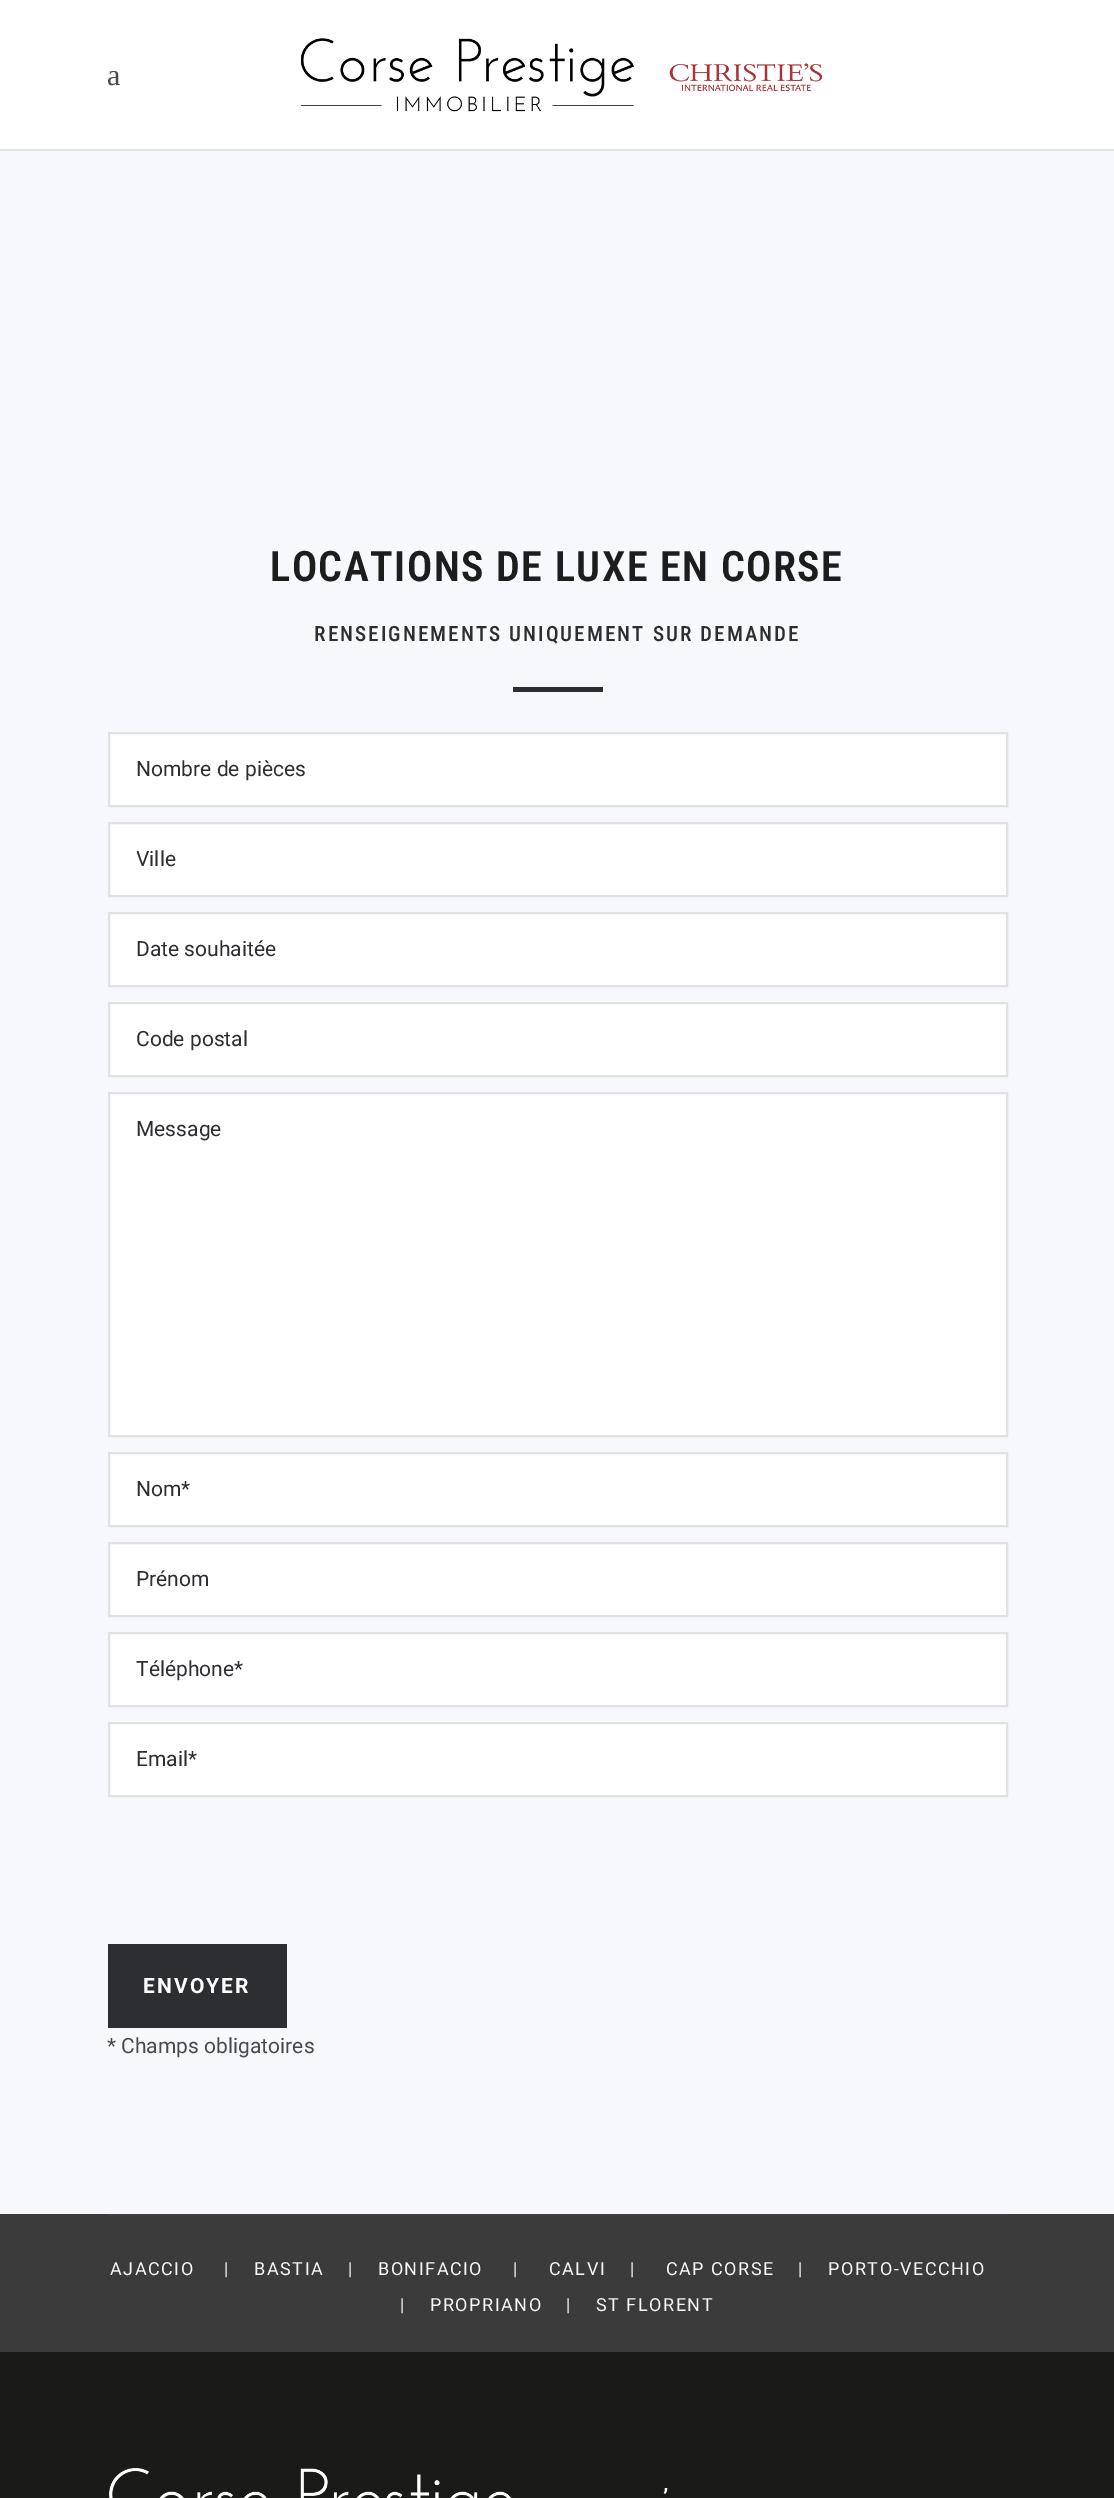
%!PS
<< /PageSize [1114 2498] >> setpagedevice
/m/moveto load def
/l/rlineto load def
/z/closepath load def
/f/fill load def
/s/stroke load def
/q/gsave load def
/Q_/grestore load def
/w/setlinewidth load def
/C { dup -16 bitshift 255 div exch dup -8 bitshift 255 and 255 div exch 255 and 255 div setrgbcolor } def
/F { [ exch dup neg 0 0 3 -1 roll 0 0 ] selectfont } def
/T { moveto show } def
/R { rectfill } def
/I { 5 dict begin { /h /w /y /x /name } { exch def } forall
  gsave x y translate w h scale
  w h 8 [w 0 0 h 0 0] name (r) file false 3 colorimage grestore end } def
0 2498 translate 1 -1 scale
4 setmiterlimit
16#F6F8FB C
0 0 1114 2498 R
16#FFFFFF C
0 0 1114 149 R
16#E1E1E1 C
0 149 1114 2 R
/LiberationSerif-Regular 30 F
16#484A51 C
(a) 107 85 T
(1.rgb) 300 38 523 74 I
/RobotoCondensed-SemiBold 42 F
16#1D1D1D C
270 581 m 1.5 0 (LOCATIONS DE LUXE EN CORSE) ashow
/RobotoCondensed-Medium 21 F
16#2D2E32 C
314 641 m 2.1 0 (RENSEIGNEMENTS UNIQUEMENT SUR DEMANDE) ashow
513 687 90 5 R
16#FFFFFF C
109 733 m 898 0 l 0 73 l -898 0 l z q f Q_
16#E1E1E1 C
2 w
s
/Roboto-Regular 21 F
16#2D2E32 C
(Nombre de pièces) 136 776 T
16#FFFFFF C
109 823 m 898 0 l 0 73 l -898 0 l z q f Q_
16#E1E1E1 C
s
q
137 848 843 24 rectclip
16#2D2E32 C
(Ville) 136 866 T
Q_
16#FFFFFF C
109 913 m 898 0 l 0 73 l -898 0 l z q f Q_
16#E1E1E1 C
s
16#2D2E32 C
(Date souhaitée) 136 956 T
16#FFFFFF C
109 1003 m 898 0 l 0 73 l -898 0 l z q f Q_
16#E1E1E1 C
s
16#2D2E32 C
(Code postal) 136 1046 T
16#FFFFFF C
109 1093 m 898 0 l 0 343 l -898 0 l z q f Q_
16#E1E1E1 C
s
16#2D2E32 C
(Message) 136 1136 T
16#FFFFFF C
109 1453 m 898 0 l 0 73 l -898 0 l z q f Q_
16#E1E1E1 C
s
16#2D2E32 C
(Nom*) 136 1496 T
16#FFFFFF C
109 1543 m 898 0 l 0 73 l -898 0 l z q f Q_
16#E1E1E1 C
s
16#2D2E32 C
(Prénom) 136 1586 T
16#FFFFFF C
109 1633 m 898 0 l 0 73 l -898 0 l z q f Q_
16#E1E1E1 C
s
16#2D2E32 C
(Téléphone*) 136 1676 T
16#FFFFFF C
109 1723 m 898 0 l 0 73 l -898 0 l z q f Q_
16#E1E1E1 C
s
16#2D2E32 C
(Email*) 136 1766 T
108 1944 179 84 R
/Roboto-Bold 21 F
16#FFFFFF C
143 1993 m 2.1 0 (ENVOYER) ashow
/Roboto-Regular 21 F
16#484A51 C
(* Champs obligatoires) 107 2053 T
16#3C3B3B C
0 2214 1114 138 R
16#404040 C
108 2214 900 2 R
/Roboto-Regular 18 F
16#F6F8FB C
110 2275 m 1.5 0 (AJACCIO     |    BASTIA    |    BONIFACIO     |) ashow
549 2275 m 1.5 0 (CALVI    |     CAP CORSE    |    PORTO-VECCHIO) ashow
400 2311 m 1.5 0 (|    PROPRIANO    |    ST FLORENT) ashow
16#1A1B19 C
0 2352 1114 146 R
(2.rgb) 109 2468 403 30 I
/Roboto-Medium 24 F
16#FFFFFF C
(’) 663 2506 T
showpage
